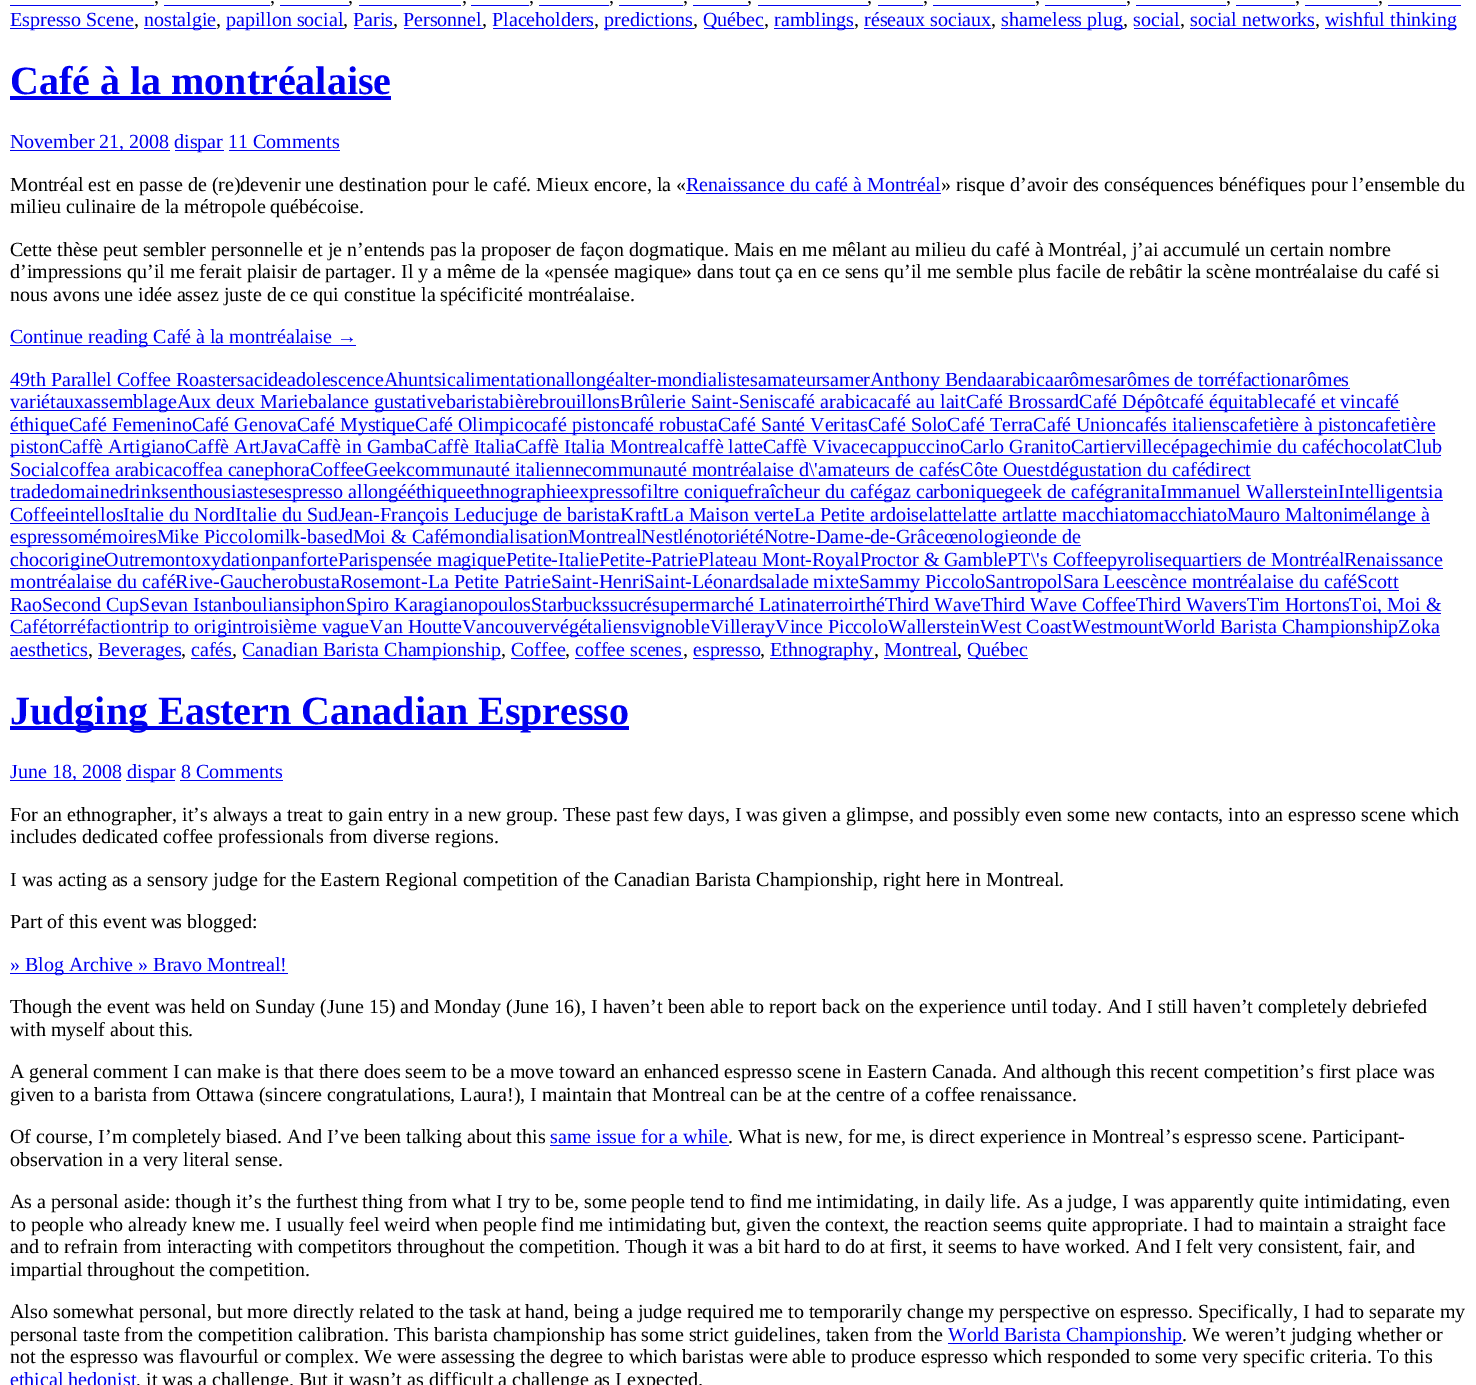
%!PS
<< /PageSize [1476 1385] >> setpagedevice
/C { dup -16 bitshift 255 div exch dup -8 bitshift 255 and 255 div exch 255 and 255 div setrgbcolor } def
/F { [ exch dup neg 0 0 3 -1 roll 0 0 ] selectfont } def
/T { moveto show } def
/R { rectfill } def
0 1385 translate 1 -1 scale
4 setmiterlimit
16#FFFFFF C
0 0 1476 1385 R
/LiberationSerif-Regular 20 F
16#000000 C
(,) 154 3 T
16#0000EE C
10 5 144 1 R
16#000000 C
(,) 270 3 T
16#0000EE C
164 5 106 1 R
16#000000 C
(,) 348 3 T
16#0000EE C
280 5 69 1 R
16#000000 C
(,) 462 3 T
16#0000EE C
359 5 102 1 R
16#000000 C
(,) 529 3 T
16#0000EE C
471 5 58 1 R
16#000000 C
(,) 609 3 T
16#0000EE C
539 5 70 1 R
16#000000 C
(,) 683 3 T
16#0000EE C
619 5 64 1 R
693 5 55 1 R
16#000000 C
(,) 747 3 T
16#0000EE C
758 5 110 1 R
16#000000 C
(,) 867 3 T
(,) 923 3 T
16#0000EE C
878 5 45 1 R
16#000000 C
(,) 1035 3 T
16#0000EE C
933 5 102 1 R
16#000000 C
(,) 1126 3 T
16#0000EE C
1045 5 81 1 R
16#000000 C
(,) 1226 3 T
16#0000EE C
1136 5 90 1 R
16#000000 C
(,) 1295 3 T
16#0000EE C
1236 5 59 1 R
16#000000 C
(,) 1378 3 T
16#0000EE C
1305 5 73 1 R
1388 5 73 1 R
10 28 124 1 R
(Espresso Scene) 10 26 T
16#000000 C
(,) 134 26 T
16#0000EE C
144 28 72 1 R
(nostalgie) 144 26 T
16#000000 C
(,) 216 26 T
16#0000EE C
226 28 118 1 R
(papillon social) 226 26 T
16#000000 C
(,) 343 26 T
16#0000EE C
(Paris) 353 26 T
16#000000 C
(,) 393 26 T
16#0000EE C
354 28 40 1 R
(Personnel) 403 26 T
404 28 79 1 R
16#000000 C
(,) 482 26 T
16#0000EE C
(Placeholders) 492 26 T
16#000000 C
(,) 594 26 T
16#0000EE C
493 28 101 1 R
604 28 90 1 R
(predictions) 604 26 T
16#000000 C
(,) 693 26 T
16#0000EE C
704 28 60 1 R
(Québec) 703 26 T
16#000000 C
(,) 764 26 T
16#0000EE C
774 28 80 1 R
(ramblings) 774 26 T
16#000000 C
(,) 854 26 T
16#0000EE C
(réseaux sociaux) 864 26 T
16#000000 C
(,) 991 26 T
16#0000EE C
864 28 127 1 R
1001 28 123 1 R
(shameless plug) 1001 26 T
16#000000 C
(,) 1123 26 T
16#0000EE C
(social) 1133 26 T
16#000000 C
(,) 1180 26 T
16#0000EE C
1134 28 46 1 R
(social networks) 1190 26 T
16#000000 C
(,) 1315 26 T
16#0000EE C
1190 28 125 1 R
1325 28 131 1 R
(wishful thinking) 1325 26 T
/LiberationSerif-Bold 40 F
(Café à la montréalaise) 10 94 T
10 96 381 4 R
10 150 160 1 R
/LiberationSerif-Regular 20 F
(November 21, 2008) 10 148 T
175 150 49 1 R
(dispar 11 Comments) 174 148 T
229 150 111 1 R
16#000000 C
(Montréal est en passe de \(re\)devenir une destination pour le café. Mieux encore, la «) 10 191 T
16#0000EE C
(Renaissance du café à Montréal) 686 191 T
686 193 255 1 R
16#000000 C
(» risque d’avoir des conséquences bénéfiques pour l’ensemble du) 941 191 T
(milieu culinaire de la métropole québécoise.) 10 213 T
(Cette thèse peut sembler personnelle et je n’entends pas la proposer de façon dogmatique. Mais en me mêlant au milieu du café à Montréal, j’ai accumulé un certain nombre) 10 256 T
(d’impressions qu’il me ferait plaisir de partager. Il y a même de la «pensée magique» dans tout ça en ce sens qu’il me semble plus facile de rebâtir la scène montréalaise du café si) 10 278 T
(nous avons une idée assez juste de ce qui constitue la spécificité montréalaise.) 10 301 T
16#0000EE C
10 345 346 1 R
(Continue reading Café à la montréalaise →) 10 343 T
10 388 860 1 R
(49th Parallel Coffee RoastersacideadolescenceAhuntsicalimentationallongéalter-mondialistesamateursamer) 10 386 T
870 388 126 1 R
(Anthony Bendaarabicaarômesarômes de torréfactionarômes) 870 386 T
996 388 354 1 R
10 410 1161 1 R
(variétauxassemblageAux deux Mariebalance gustativebaristabièrebrouillonsBrûlerie Saint-Seniscafé arabicacafé au laitCafé BrossardCafé Dépôt) 10 408 T
1171 410 229 1 R
(café équitablecafé et vincafé) 1171 408 T
10 433 286 1 R
(éthiqueCafé FemeninoCafé Genova) 10 431 T
296 433 324 1 R
(Café MystiqueCafé Olimpicocafé pistoncafé robustaCafé Santé VeritasCafé SoloCafé TerraCafé Unioncafés italiens) 297 431 T
620 433 815 1 R
(cafetière à pistoncafetière) 1230 431 T
10 455 286 1 R
(pistonCaffè ArtigianoCaffè ArtJavaCaffè in GambaCaffè ItaliaCaffè Italia Montrealcaffè latteCaffè Vivace) 10 453 T
296 455 865 1 R
(cappuccinoCarlo GranitoCartierville) 869 453 T
1161 455 280 1 R
(cépagechimie du caféchocolatClub) 1162 453 T
10 478 396 1 R
(Socialcoffea arabicacoffea canephoraCoffeeGeekcommunauté italiennecommunauté montréalaise d\\'amateurs de cafésCôte Ouest) 10 476 T
406 478 845 1 R
(dégustation du cafédirect) 1050 476 T
10 500 1433 1 R
(tradedomainedrinksenthousiastesespresso allongééthiqueethnographieexpressofiltre coniquefraîcheur du cafégaz carboniquegeek de cafégranitaImmanuel WallersteinIntelligentsia) 10 498 T
10 523 610 1 R
(CoffeeintellosItalie du NordItalie du SudJean-François Leducjuge de baristaKraftLa Maison verteLa Petite ardoiselattelatte artlatte macchiatomacchiatoMauro Maltoni) 10 521 T
620 523 810 1 R
(mélange à) 1348 521 T
10 545 631 1 R
(espressomémoiresMike Piccolomilk-basedMoi & CafémondialisationMontrealNestlénotoriétéNotre-Dame-de-Grâce) 10 543 T
641 545 440 1 R
(œnologieonde de) 944 543 T
10 568 1161 1 R
(chocorigineOutremontoxydationpanforteParispensée magiquePetite-ItaliePetite-PatriePlateau Mont-RoyalProctor & GamblePT\\'s Coffeepyrolise) 10 566 T
1171 568 272 1 R
(quartiers de MontréalRenaissance) 1172 566 T
10 590 1389 1 R
(montréalaise du caféRive-GaucherobustaRosemont-La Petite PatrieSaint-HenriSaint-Léonardsalade mixteSammy PiccoloSantropolSara Leescènce montréalaise du caféScott) 10 588 T
10 613 335 1 R
(RaoSecond CupSevan Istanbouliansiphon) 10 611 T
345 613 1096 1 R
(Spiro KaragianopoulosStarbuckssucrésupermarché LatinaterroirthéThird WaveThird Wave CoffeeThird WaversTim HortonsToi, Moi &) 346 611 T
10 635 765 1 R
(Cafétorréfactiontrip to origintroisième vagueVan HoutteVancouvervégétaliensvignobleVillerayVince PiccoloWallersteinWest CoastWestmount) 10 633 T
775 635 665 1 R
(World Barista ChampionshipZoka) 1164 633 T
(aesthetics) 10 656 T
16#000000 C
(,) 88 656 T
16#0000EE C
10 658 78 1 R
98 658 83 1 R
(Beverages) 98 656 T
16#000000 C
(,) 181 656 T
16#0000EE C
(cafés) 191 656 T
191 658 42 1 R
16#000000 C
(,) 232 656 T
16#0000EE C
243 658 258 1 R
(Canadian Barista Championship) 242 656 T
16#000000 C
(,) 501 656 T
16#0000EE C
(Coffee) 511 656 T
16#000000 C
(,) 565 656 T
16#0000EE C
511 658 54 1 R
(coffee scenes) 575 656 T
16#000000 C
(,) 683 656 T
16#0000EE C
575 658 108 1 R
693 658 67 1 R
(espresso) 693 656 T
16#000000 C
(,) 760 656 T
16#0000EE C
770 658 104 1 R
(Ethnography) 770 656 T
16#000000 C
(,) 874 656 T
16#0000EE C
(Montreal) 884 656 T
884 658 74 1 R
16#000000 C
(,) 957 656 T
16#0000EE C
968 658 60 1 R
(Québec) 967 656 T
10 726 619 4 R
/LiberationSerif-Bold 40 F
(Judging Eastern Canadian Espresso) 10 724 T
10 780 111 1 R
/LiberationSerif-Regular 20 F
(June 18, 2008) 10 778 T
126 780 49 1 R
(dispar 8 Comments) 127 778 T
180 780 103 1 R
16#000000 C
(For an ethnographer, it’s always a treat to gain entry in a new group. These past few days, I was given a glimpse, and possibly even some new contacts, into an espresso scene which) 10 821 T
(includes dedicated coffee professionals from diverse regions.) 10 843 T
(I was acting as a sensory judge for the Eastern Regional competition of the Canadian Barista Championship, right here in Montreal.) 10 886 T
(Part of this event was blogged:) 10 928 T
16#0000EE C
10 973 278 1 R
(» Blog Archive » Bravo Montreal!) 10 971 T
16#000000 C
(Though the event was held on Sunday \(June 15\) and Monday \(June 16\), I haven’t been able to report back on the experience until today. And I still haven’t completely debriefed) 10 1013 T
(with myself about this.) 10 1036 T
(A general comment I can make is that there does seem to be a move toward an enhanced espresso scene in Eastern Canada. And although this recent competition’s first place was) 10 1078 T
(given to a barista from Ottawa \(sincere congratulations, Laura!\), I maintain that Montreal can be at the centre of a coffee renaissance.) 10 1101 T
(Of course, I’m completely biased. And I’ve been talking about this) 10 1143 T
16#0000EE C
(same issue for a while) 550 1143 T
550 1145 179 1 R
16#000000 C
(. What is new, for me, is direct experience in Montreal’s espresso scene. Participant-) 728 1143 T
(observation in a very literal sense.) 10 1166 T
(As a personal aside: though it’s the furthest thing from what I try to be, some people tend to find me intimidating, in daily life. As a judge, I was apparently quite intimidating, even) 10 1208 T
(to people who already knew me. I usually feel weird when people find me intimidating but, given the context, the reaction seems quite appropriate. I had to maintain a straight face) 10 1231 T
(and to refrain from interacting with competitors throughout the competition. Though it was a bit hard to do at first, it seems to have worked. And I felt very consistent, fair, and) 10 1253 T
(impartial throughout the competition.) 10 1276 T
(Also somewhat personal, but more directly related to the task at hand, being a judge required me to temporarily change my perspective on espresso. Specifically, I had to separate my) 10 1318 T
(personal taste from the competition calibration. This barista championship has some strict guidelines, taken from the) 10 1341 T
16#0000EE C
948 1343 235 1 R
(World Barista Championship) 948 1341 T
16#000000 C
(. We weren’t judging whether or) 1182 1341 T
(not the espresso was flavourful or complex. We were assessing the degree to which baristas were able to produce espresso which responded to some very specific criteria. To this) 10 1363 T
16#0000EE C
(ethical hedonist) 10 1386 T
16#000000 C
(, it was a challenge. But it wasn’t as difficult a challenge as I expected.) 136 1386 T
showpage
